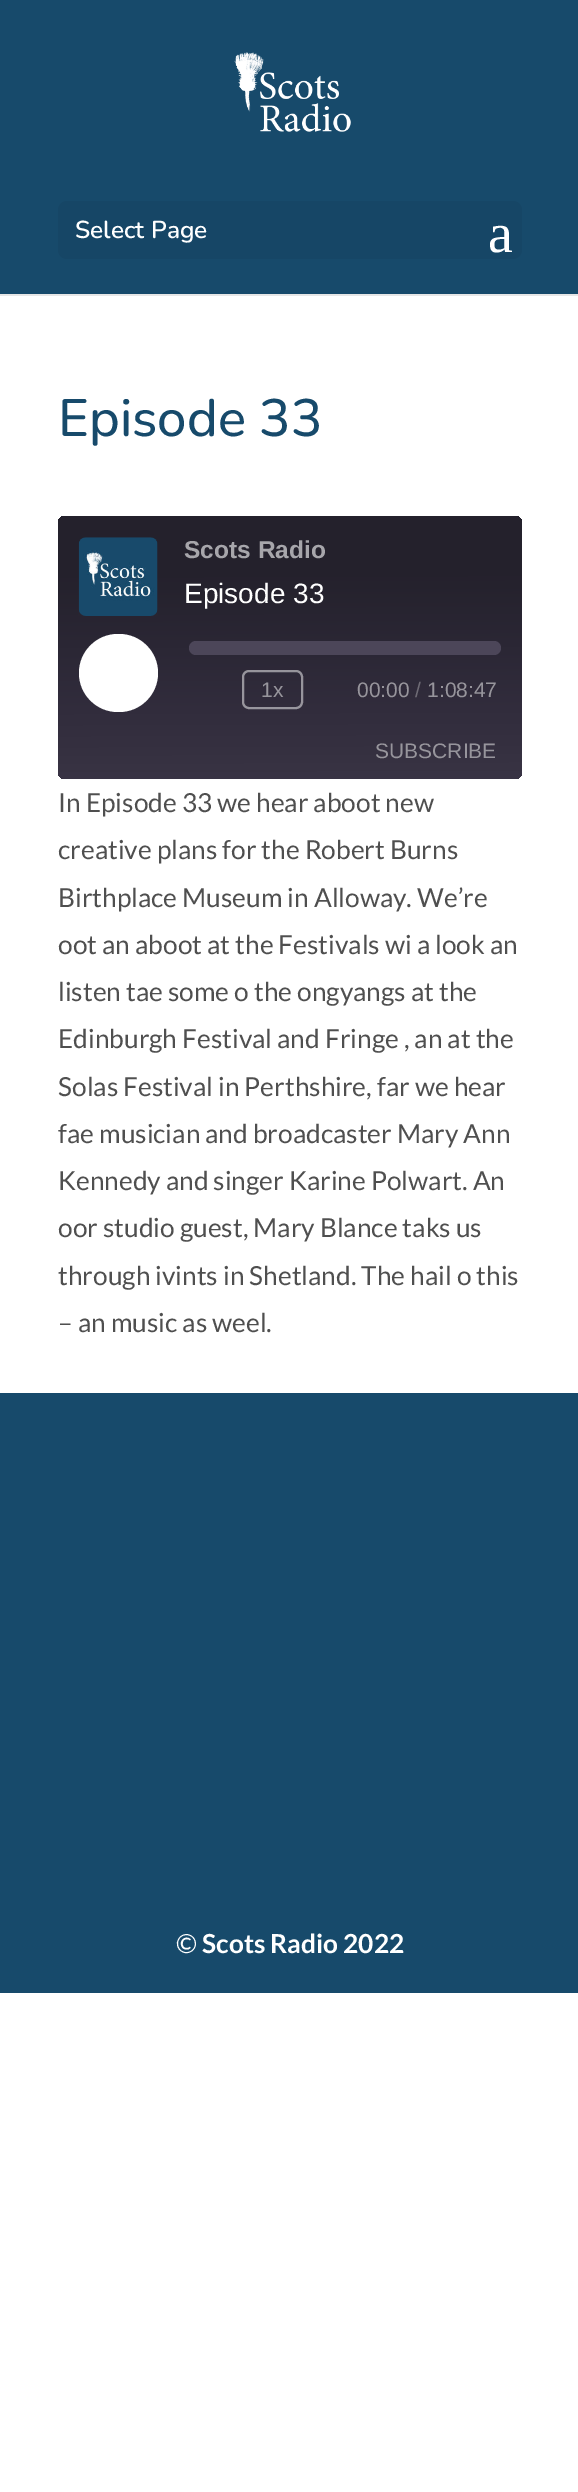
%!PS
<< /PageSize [578 2492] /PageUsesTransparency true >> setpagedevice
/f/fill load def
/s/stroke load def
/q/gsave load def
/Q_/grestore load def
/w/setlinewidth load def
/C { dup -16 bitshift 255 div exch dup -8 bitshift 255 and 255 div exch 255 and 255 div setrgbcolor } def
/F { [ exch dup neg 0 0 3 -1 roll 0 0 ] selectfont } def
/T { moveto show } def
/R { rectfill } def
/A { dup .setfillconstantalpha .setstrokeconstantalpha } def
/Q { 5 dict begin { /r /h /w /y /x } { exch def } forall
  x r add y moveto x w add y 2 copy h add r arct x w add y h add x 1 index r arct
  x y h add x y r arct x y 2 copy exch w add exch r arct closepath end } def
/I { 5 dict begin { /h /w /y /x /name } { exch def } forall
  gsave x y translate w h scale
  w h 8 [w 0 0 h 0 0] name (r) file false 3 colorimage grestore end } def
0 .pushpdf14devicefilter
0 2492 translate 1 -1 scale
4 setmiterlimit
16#FFFFFF C
0 0 578 2492 R
16#E6E6E6 C
0 294 578 2 R
16#174A6B C
0 0 578 294 R
(1.rgb) 234 52 117 80 I
16#164666 C
58 201 464 58 9 Q f
/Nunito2-ExtraLight 24.5 F
16#FFFFFF C
(Select Page) 75 238 T
/LiberationSerif-Regular 56 F
(a) 488 252 T
/Nunito-ExtraLight 52.5 F
16#174A6B C
(Episode 33) 58 436 T
q 58 516 464 263 7 Q clip newpath
<< /ShadingType 2 /ColorSpace /DeviceRGB /Coords [290 780 289 515] /Extend [true true] /Function << /FunctionType 3 /Domain [0 1] /Functions [<< /FunctionType 2 /Domain [0 1] /C0 [.22 .2 .267] /C1 [.22 .2 .267] /N 1 >> << /FunctionType 2 /Domain [0 1] /C0 [.22 .2 .267] /C1 [.141 .129 .173] /N 1 >> << /FunctionType 2 /Domain [0 1] /C0 [.141 .129 .173] /C1 [.141 .129 .173] /N 1 >>] /Bounds [.01 .78] /Encode [0 1 0 1 0 1] >> >> shfill Q_
(2.rgb) 78 537 80 79 I
/LiberationSans-Bold 24.5 F
16#A7A6AB C
(Scots Radio) 184 558 T
/LiberationSans-Regular 28 F
16#FFFFFF C
(Episode 33) 184 603 T
79 634 79 78 39 Q f
16#4C4659 C
189 641 312 14 7 Q f
0.5 A
16#FFFFFF C
2 w
243 671 59 37 6 Q s
/LiberationSans-Regular 21 F
1 A
16#97959C C
(1x) 261 697 T
(00:00) 357 697 T
16#6E6B75 C
(/) 415 697 T
16#97959C C
(1:08:47) 427 697 T
(SUBSCRIBE) 375 758 T
/Lato-Regular 26.25 F
16#4F4F4F C
(In Episode 33 we hear aboot new) 58 812 T
(creative plans for the Robert Burns) 58 859 T
(Birthplace Museum in Alloway. We’re) 58 907 T
(oot an aboot at the Festivals wi a look an) 58 954 T
(listen tae some o the ongyangs at the) 58 1001 T
(Edinburgh Festival and Fringe , an at the) 58 1048 T
(Solas Festival in Perthshire, far we hear) 58 1096 T
(fae musician and broadcaster Mary Ann) 58 1143 T
(Kennedy and singer Karine Polwart. An) 58 1190 T
(oor studio guest, Mary Blance taks us) 58 1237 T
(through ivints in Shetland. The hail o this) 58 1285 T
(– an music as weel.) 58 1332 T
16#174A6B C
0 1393 578 600 R
16#FFFFFF C
(©) 176 1953 T
/Lato-Bold 26.25 F
(Scots Radio 2022) 202 1953 T
.poppdf14devicefilter showpage
